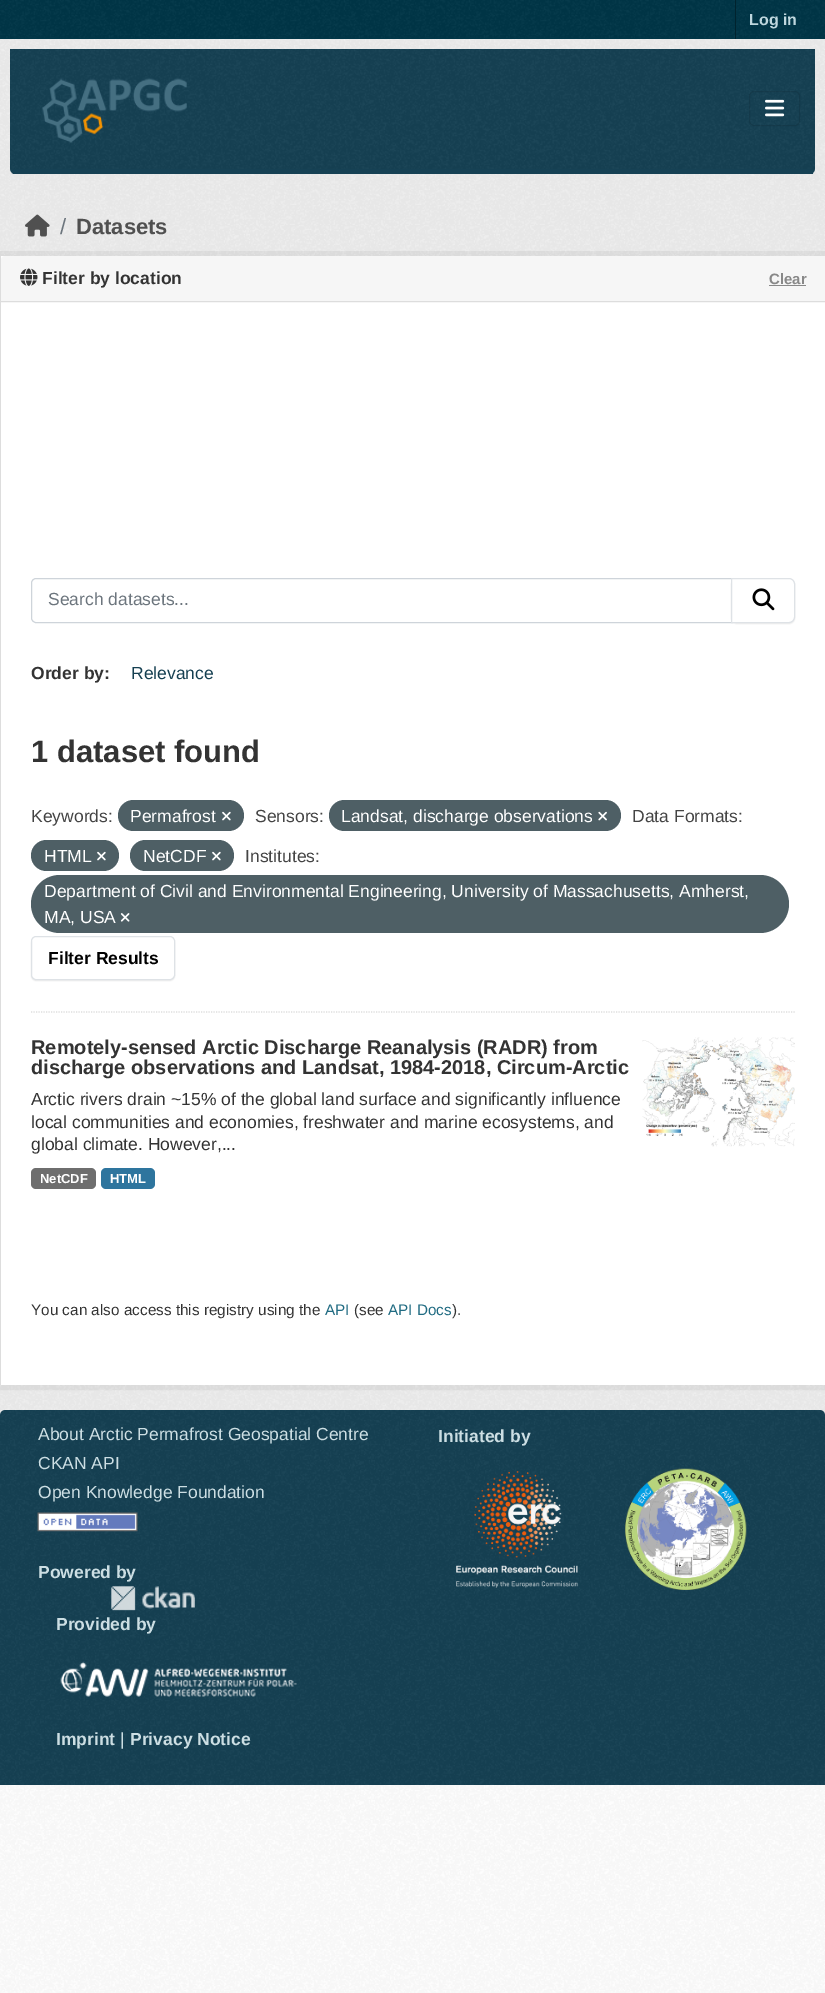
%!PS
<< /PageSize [825 1993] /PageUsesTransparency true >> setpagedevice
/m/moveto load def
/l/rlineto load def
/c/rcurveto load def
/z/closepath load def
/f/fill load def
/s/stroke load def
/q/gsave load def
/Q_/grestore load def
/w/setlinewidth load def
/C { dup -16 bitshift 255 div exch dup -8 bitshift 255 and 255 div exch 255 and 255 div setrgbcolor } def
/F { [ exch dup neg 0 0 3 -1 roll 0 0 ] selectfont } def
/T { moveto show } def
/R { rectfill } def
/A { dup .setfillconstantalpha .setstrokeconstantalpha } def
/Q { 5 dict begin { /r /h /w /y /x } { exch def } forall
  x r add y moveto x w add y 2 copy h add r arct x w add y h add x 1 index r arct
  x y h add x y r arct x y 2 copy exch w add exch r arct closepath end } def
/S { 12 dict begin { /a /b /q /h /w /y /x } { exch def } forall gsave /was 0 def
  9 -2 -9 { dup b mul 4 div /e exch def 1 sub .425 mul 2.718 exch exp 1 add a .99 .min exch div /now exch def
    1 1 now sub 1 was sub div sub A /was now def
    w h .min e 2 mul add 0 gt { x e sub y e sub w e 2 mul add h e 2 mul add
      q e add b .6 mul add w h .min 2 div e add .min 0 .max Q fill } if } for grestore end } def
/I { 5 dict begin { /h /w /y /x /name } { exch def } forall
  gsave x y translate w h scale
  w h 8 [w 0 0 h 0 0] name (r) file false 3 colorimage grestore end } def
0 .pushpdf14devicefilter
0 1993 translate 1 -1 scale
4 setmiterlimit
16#FFFFFF C
0 0 825 1993 R
(1.rgb) 0 1785 825 208 I
16#003647 C
0 0 825 39 R
(2.rgb) 0 0 825 38 I
16#00232E C
735 0 1 39 R
/LiberationSans-Bold 16 F
16#BFD7DE C
(Log in) 749 25 T
16#EEEEEE C
0 39 825 145 R
(3.rgb) 0 39 825 145 I
16#164154 C
10 49 m 805 0 l 0 120 l 0 3 -2 5 -5 5 c -795 0 l -3 0 -5 -2 -5 -5 c z f
(4.rgb) 10 49 805 124 I
13 169 800 5 R
(5.rgb) 42 78 145 65 I
0.1 A
16#000000 C
749.5 91.5 50 34 4.5 Q s
1 A
(6.rgb) 765 99 20 18 I
16#EEEEEE C
0 184 825 1231 R
(7.rgb) 0 184 825 1226 I
(8.rgb) 25 214 25 23 I
/LiberationSans-Regular 22 F
16#6C757D C
(/) 60 234 T
/LiberationSans-Bold 22 F
16#505050 C
(Datasets) 76 234 T
0.05 A
16#000000 C
5 w
-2.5 253.5 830 1134 rectstroke
1 A
16#FFFFFF C
1 256 824 1129 R
16#F6F6F6 C
5 256 m 820 0 l 0 47 l -824 0 l 0 -43 l 0 -2 2 -4 4 -4 c z f
16#DDDDDD C
1 301 824 1 R
(9.rgb) 20 268 18 18 I
/LiberationSans-Bold 17.5 F
16#333333 C
(Filter by location) 42 284 T
/LiberationSans-Bold 15 F
16#888888 C
(Clear) 769 284 T
769 285 37 1 R
16#DDDDDD C
0 256 1 1129 R
1.2 w
[1.25 1.25] 0 setdash
31 1012 m 764 0 l s
16#CED4DA C
1 w
[] 0 setdash
36 578.5 m 696.5 0 l 0 44 l -696.5 0 l -2.5 0 -4.5 -2 -4.5 -4.5 c 0 -35 l 0 -2.5 2 -4.5 4.5 -4.5 c z s
/LiberationSans-Regular 17.5 F
16#6C757D C
(Search datasets...) 48 605 T
16#000000 C
731 579 64 45 6 .5 .07 S
16#FFFFFF C
731.5 578.5 m 57.5 0 l 3 0 5.5 2.5 5.5 5.5 c 0 33 l 0 3 -2.5 5.5 -5.5 5.5 c -57.5 0 l z q f Q_
16#DEE2E6 C
s
(10.rgb) 752 588 23 23 I
/LiberationSans-Bold 17.5 F
16#333333 C
(Order by:) 31 679 T
/LiberationSans-Regular 17.5 F
16#153F51 C
(Relevance) 131 679 T
/LiberationSans-Bold 31 F
16#333333 C
(1 dataset found) 31 762 T
/LiberationSans-Regular 17.5 F
16#444444 C
(Keywords:) 31 822 T
16#4E5F65 C
118 800 126 31 15.5 Q f
16#FFFFFF C
(Permafrost) 130 822 T
(11.rgb) 222 811 9 10 I
16#444444 C
(Sensors:) 255 822 T
16#4E5F65 C
329 800 292 31 15.5 Q f
16#FFFFFF C
(Landsat, discharge observations) 341 822 T
(12.rgb) 598 811 9 10 I
16#444444 C
(Data Formats:) 632 822 T
16#4E5F65 C
31 840 88 31 15.5 Q f
16#FFFFFF C
(HTML) 44 862 T
(11.rgb) 97 851 9 10 I
16#4E5F65 C
130 840 104 31 15.5 Q f
16#FFFFFF C
(NetCDF) 143 862 T
(11.rgb) 212 851 9 10 I
16#444444 C
(Institutes:) 245 862 T
16#4E5F65 C
31 875 758 58 29 Q f
16#FFFFFF C
(Department of Civil and Environmental Engineering, University of Massachusetts, Amherst,) 44 897 T
(MA, USA) 44 923 T
(13.rgb) 120 913 10 9 I
16#000000 C
31 938 144 43 5 .5 .07 S
16#FFFFFF C
31.5 936.5 143 43 4.5 Q q f Q_
16#DEE2E6 C
s
/LiberationSans-Bold 17.5 F
16#000000 C
(Filter Results) 48 964 T
/LiberationSans-Bold 20 F
16#333333 C
(Remotely-sensed Arctic Discharge Reanalysis \(RADR\) from) 31 1054 T
(discharge observations and Landsat, 1984-2018, Circum-Arctic) 31 1074 T
/LiberationSans-Regular 17.5 F
(Arctic rivers drain ~15% of the global land surface and significantly influence) 31 1105 T
(local communities and economies, freshwater and marine ecosystems, and) 31 1128 T
(global climate. However,...) 31 1150 T
(14.rgb) 642 1037 153 110 I
16#6E6E6E C
31 1168 65 21 5 Q f
/LiberationSans-Bold 13 F
16#FFFFFF C
(NetCDF) 40 1183 T
16#2E759E C
101 1168 54 21 5 Q f
16#FFFFFF C
(HTML) 110 1183 T
/LiberationSans-Regular 15.3 F
16#333333 C
(You can also access this registry using the) 31 1315 T
16#206B82 C
(API) 325 1315 T
16#333333 C
(\(see) 354 1315 T
16#206B82 C
(API Docs) 388 1315 T
16#333333 C
(\).) 452 1315 T
(15.rgb) 0 1410 825 5 I
16#164154 C
5 1410 m 815 0 l 3 0 5 2 5 5 c 0 370 l -825 0 l 0 -370 l 0 -3 2 -5 5 -5 c z f
(16.rgb) 0 1410 825 375 I
/LiberationSans-Regular 17.5 F
16#CCDEE3 C
(About Arctic Permafrost Geospatial Centre) 38 1440 T
(CKAN API) 38 1469 T
(Open Knowledge Foundation) 38 1498 T
(17.rgb) 37 1512 101 20 I
/LiberationSans-Bold 17.5 F
(Powered by) 38 1578 T
(18.rgb) 111 1586 84 25 I
(Initiated by) 438 1442 T
(19.rgb) 456 1471 122 117 I
(20.rgb) 625 1468 122 122 I
(Provided by) 56 1630 T
(21.rgb) 60 1661 237 36 I
(Imprint) 56 1745 T
/LiberationSans-Regular 17.5 F
(|) 120 1745 T
/LiberationSans-Bold 17.5 F
(Privacy Notice) 130 1745 T
.poppdf14devicefilter showpage
